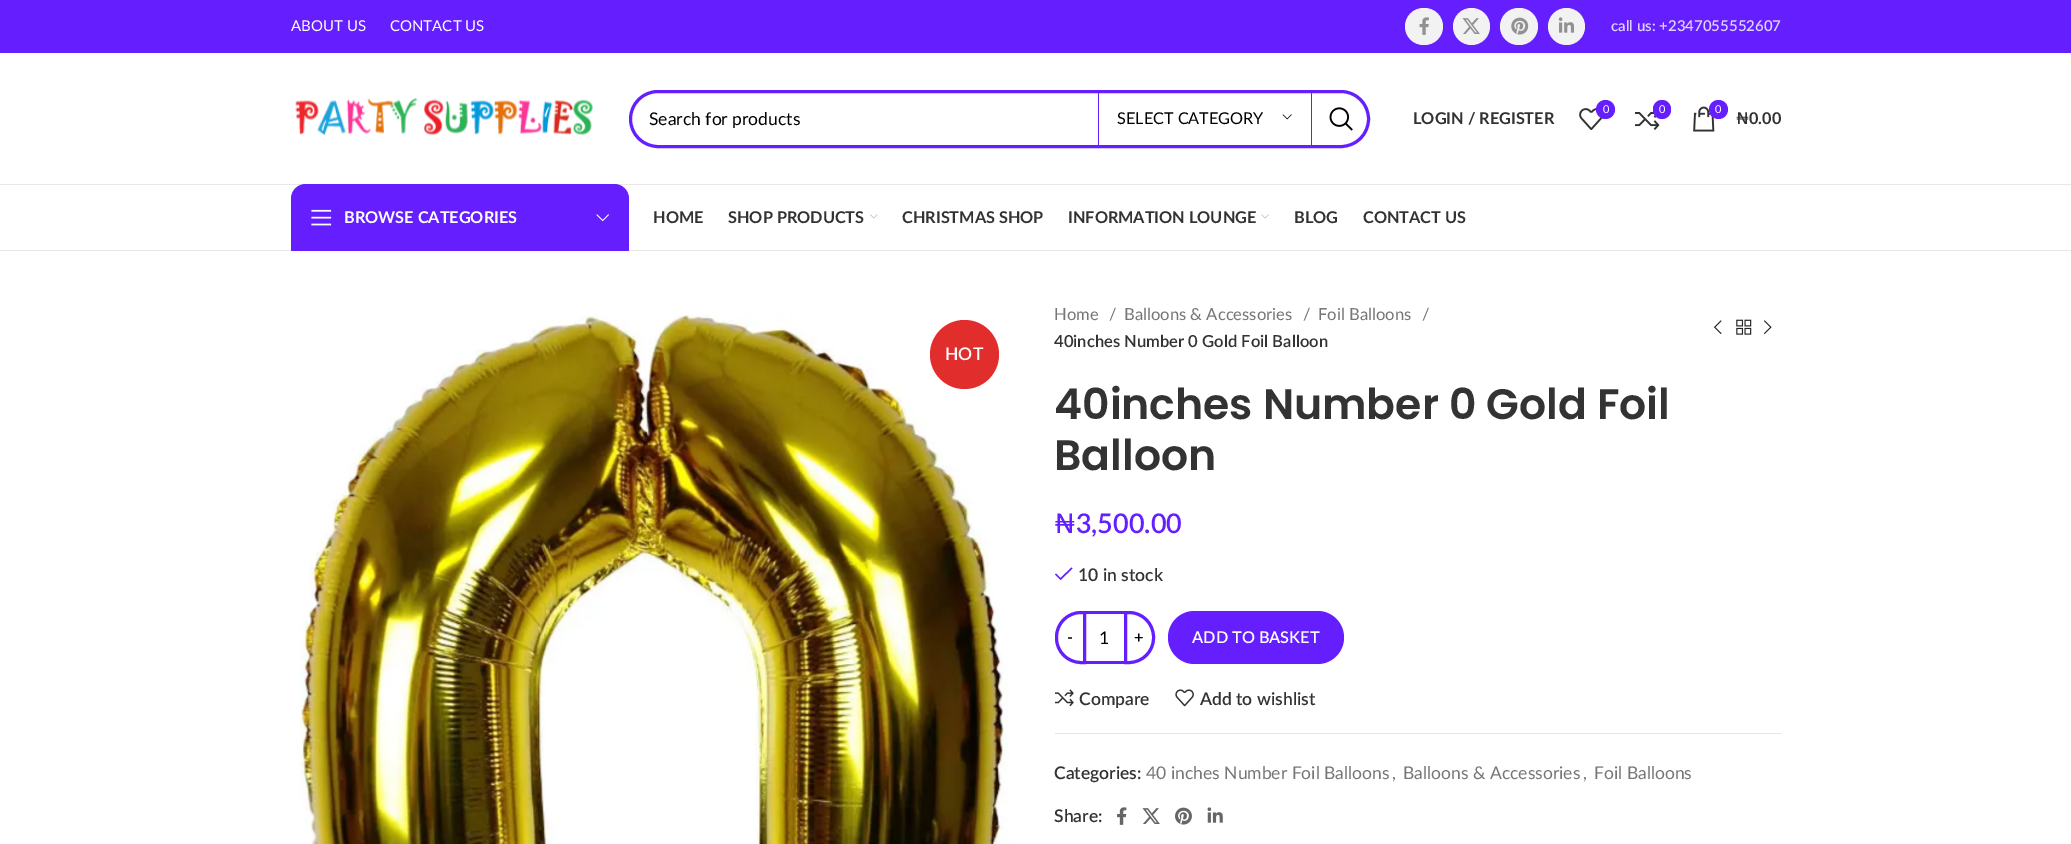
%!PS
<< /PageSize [2071 844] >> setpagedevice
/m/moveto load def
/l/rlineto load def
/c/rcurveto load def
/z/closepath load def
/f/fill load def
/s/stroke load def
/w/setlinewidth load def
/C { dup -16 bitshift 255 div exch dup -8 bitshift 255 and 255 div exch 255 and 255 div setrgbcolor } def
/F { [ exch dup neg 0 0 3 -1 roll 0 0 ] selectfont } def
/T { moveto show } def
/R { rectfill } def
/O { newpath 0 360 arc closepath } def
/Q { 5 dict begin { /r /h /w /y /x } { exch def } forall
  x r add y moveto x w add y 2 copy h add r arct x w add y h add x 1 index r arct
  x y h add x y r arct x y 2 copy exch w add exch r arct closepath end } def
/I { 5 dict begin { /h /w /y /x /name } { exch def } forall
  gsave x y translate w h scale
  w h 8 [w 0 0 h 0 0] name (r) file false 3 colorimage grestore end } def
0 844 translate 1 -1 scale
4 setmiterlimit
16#FFFFFF C
0 0 2071 844 R
16#651FFF C
0 0 2071 53 R
/Lato-Regular 15 F
16#FFFFFF C
(ABOUT US) 291 31 T
(CONTACT US) 390 31 T
16#F2F2F2 C
1405 8 38 37 18.5 Q f
(1.rgb) 1419 17 10 18 I
1471.5 26.5 18.5 O f
(2.rgb) 1462 18 18 16 I
1500 8 38 37 18.5 Q f
(3.rgb) 1511 17 18 18 I
1566.5 26.5 18.5 O f
(4.rgb) 1558 17 17 16 I
/Lato-SemiBold 15 F
16#E0D2FF C
(call us: +2347055552607) 1611 31 T
16#E8E8E8 C
0 184 2071 1 R
(5.rgb) 295 98 298 38 I
16#651FFF C
3 w
630.5 91.5 738 55 27.5 Q s
/Lato-Regular 17.5 F
16#000000 C
(Search for products) 649 125 T
16#651FFF C
1311 93 1 52 R
1098 93 1 52 R
/Lato-Regular 16.25 F
16#000000 C
(SELECT CATEGORY) 1117 124 T
(6.rgb) 1282 114 10 6 I
(7.rgb) 1329 107 24 24 I
/Lato-Bold 16.25 F
16#333333 C
(LOGIN / REGISTER) 1413 124 T
(8.rgb) 1579 108 24 22 I
16#651FFF C
1605.5 109.5 9.5 O f
/Lato-Regular 11 F
16#FFFFFF C
(0) 1603 113 T
(9.rgb) 1635 112 25 18 I
16#651FFF C
1653 100 18 19 9 Q f
16#FFFFFF C
(0) 1659 113 T
(10.rgb) 1693 106 22 26 I
16#651FFF C
1718.5 109.5 9.5 O f
16#FFFFFF C
(0) 1715 113 T
/Lato-Bold 16.25 F
16#333333 C
(₦0.00) 1736 124 T
16#E8E8E8 C
0 250 2071 1 R
16#651FFF C
306 184 m 308 0 l 8.5 0 15 6.5 15 15 c 0 52 l -338 0 l 0 -52 l 0 -8.5 6.5 -15 15 -15 c z f
(11.rgb) 311 209 21 17 I
16#FFFFFF C
(BROWSE CATEGORIES) 344 223 T
(12.rgb) 596 214 13 8 I
16#333333 C
(HOME) 653 223 T
(SHOP PRODUCTS) 728 223 T
(13.rgb) 870 214 8 5 I
(CHRISTMAS SHOP) 902 223 T
(INFORMATION LOUNGE) 1068 223 T
(14.rgb) 1261 214 8 5 I
(BLOG) 1294 223 T
(CONTACT US) 1363 223 T
(15.rgb) 299 314 710 530 I
16#E22D2D C
964.5 354.5 34.5 O f
/Lato-SemiBold 17.5 F
16#FFFFFF C
(HOT) 945 360 T
/Lato-Regular 16.6 F
16#767676 C
(Home) 1054 320 T
(/) 1109 320 T
(Balloons & Accessories) 1124 320 T
(/) 1303 320 T
(Foil Balloons) 1318 320 T
(/) 1422 320 T
/Lato-SemiBold 16.6 F
16#333333 C
(40inches Number 0 Gold Foil Balloon) 1054 347 T
(16.rgb) 1713 320 9 15 I
(17.rgb) 1736 319 16 16 I
(18.rgb) 1763 320 9 15 I
/Poppins-SemiBold 42.5 F
(40inches Number 0 Gold Foil) 1054 419 T
(Balloon) 1054 470 T
/Lato-SemiBold 27 F
16#651FFF C
(₦3,500.00) 1054 533 T
1072.5 568.5 m -1 -1 l -11 10.5 l -4.5 -4.5 l -1 1 l 5.5 5.5 l z f
/Lato-SemiBold 17.5 F
16#333333 C
(10 in stock) 1078 581 T
16#651FFF C
1081 612.5 m 3.5 0 l 0 50 l -3.5 0 l -13.5 0 -24.5 -11 -24.5 -24.5 c 0 -1 l 0 -13.5 11 -24.5 24.5 -24.5 c z s
/Lato-SemiBold 16.25 F
16#000000 C
(-) 1067 643 T
16#651FFF C
1086 611 38 3 R
1086 661 38 3 R
/Lato-Regular 17.5 F
16#000000 C
(1) 1099 644 T
16#651FFF C
1125.5 612.5 m 3.5 0 l 13.5 0 24.5 11 24.5 24.5 c 0 1 l 0 13.5 -11 24.5 -24.5 24.5 c -3.5 0 l z s
/Lato-SemiBold 16.25 F
16#000000 C
(+) 1134 643 T
16#651FFF C
1168 611 176 53 26.5 Q f
16#FFFFFF C
(ADD TO BASKET) 1192 643 T
(19.rgb) 1055 689 19 18 I
/Lato-SemiBold 17.5 F
16#333333 C
(Compare) 1079 705 T
(20.rgb) 1175 689 19 18 I
(Add to wishlist) 1200 705 T
16#E4E4E4 C
1055 733 726 1 R
16#333333 C
(Categories:) 1054 779 T
/Lato-Regular 17.5 F
16#767676 C
(40 inches Number Foil Balloons) 1146 779 T
(,) 1392 779 T
(Balloons & Accessories) 1403 779 T
(,) 1583 779 T
(Foil Balloons) 1594 779 T
/Lato-SemiBold 17.5 F
16#333333 C
(Share:) 1054 822 T
(21.rgb) 1117 807 10 18 I
(22.rgb) 1142 808 18 16 I
(23.rgb) 1175 807 17 18 I
(24.rgb) 1207 807 16 16 I
showpage
